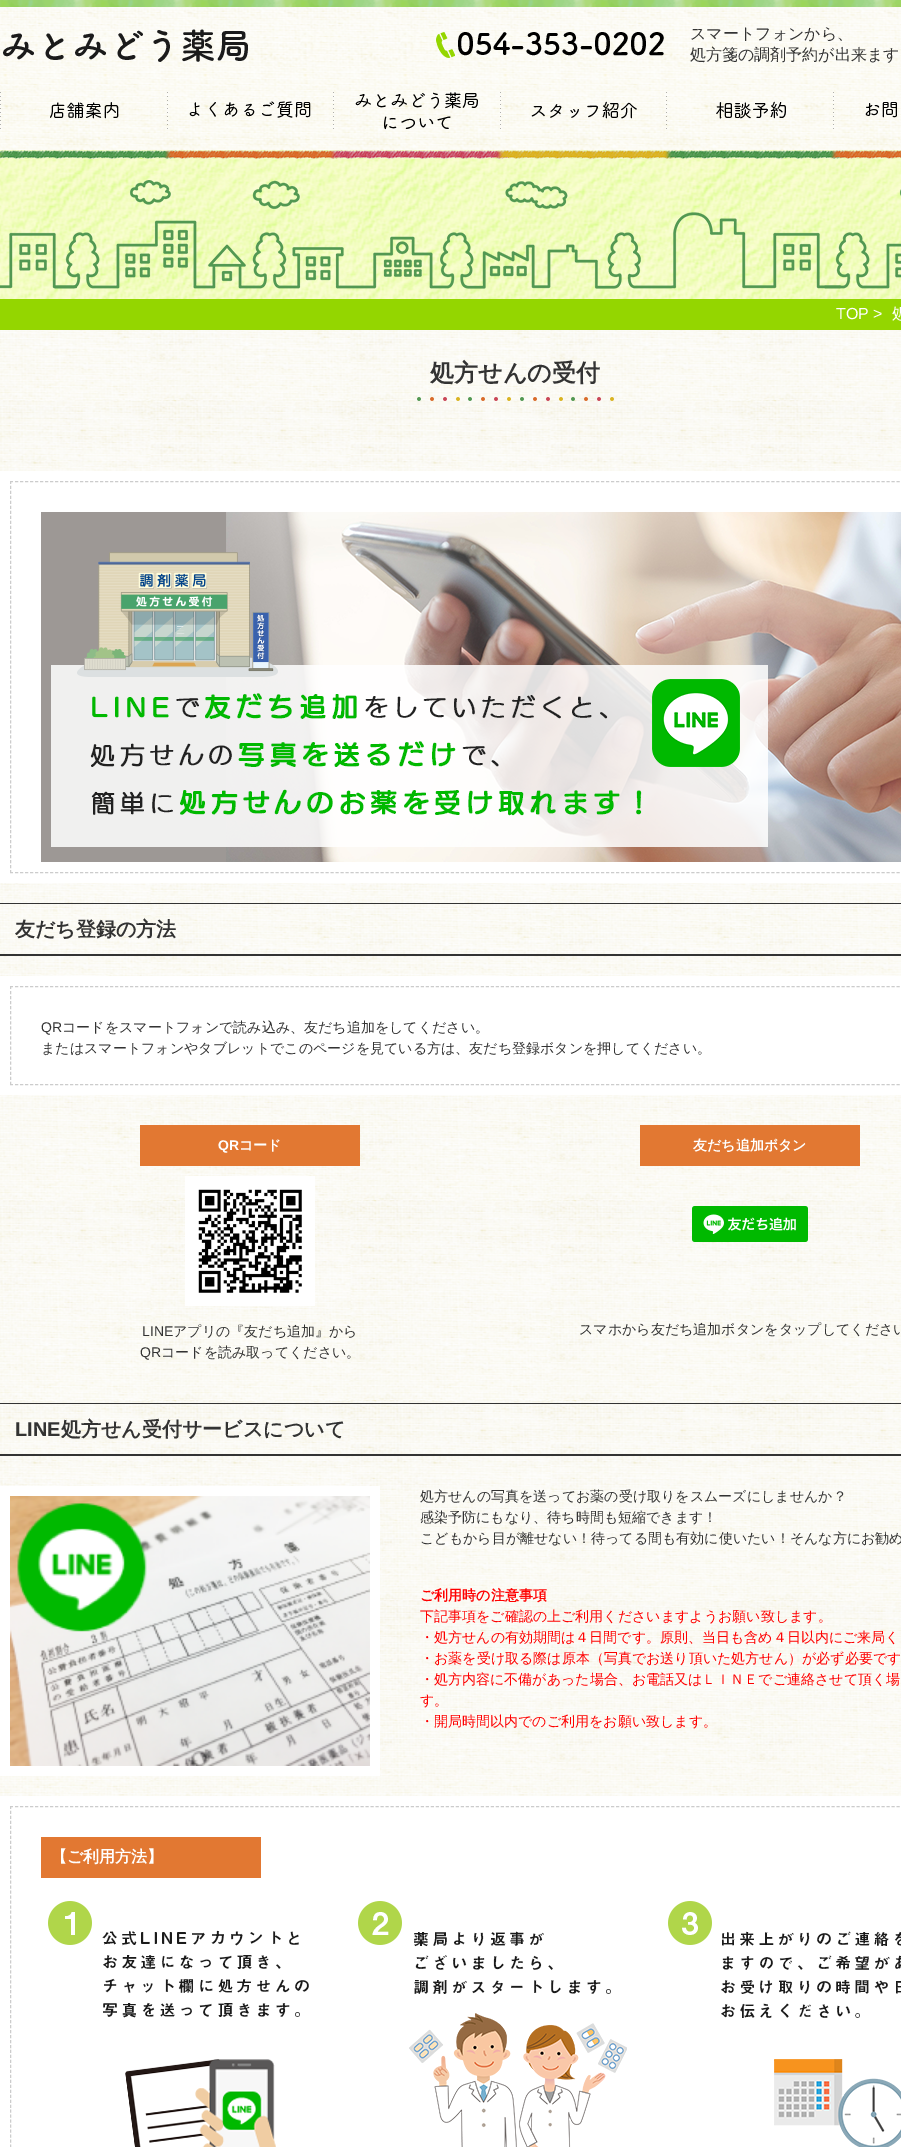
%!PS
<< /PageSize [901 2147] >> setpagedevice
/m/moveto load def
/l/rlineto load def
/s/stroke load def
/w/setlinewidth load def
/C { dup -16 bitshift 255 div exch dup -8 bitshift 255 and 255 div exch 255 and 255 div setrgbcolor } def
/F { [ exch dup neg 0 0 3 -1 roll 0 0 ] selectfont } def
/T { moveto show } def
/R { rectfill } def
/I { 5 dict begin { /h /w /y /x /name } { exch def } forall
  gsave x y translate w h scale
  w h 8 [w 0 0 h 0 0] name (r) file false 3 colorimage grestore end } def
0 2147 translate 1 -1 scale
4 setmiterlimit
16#FFFFFF C
0 0 901 2147 R
(1.rgb) 0 330 901 1466 I
(2.rgb) 0 0 901 150 I
(3.rgb) 3 29 245 33 I
(4.rgb) 436 32 228 26 I
/WenQuanYiZenHei-Medium 16 F
16#333333 C
(スマートフォンから、) 690 39 T
(処方箋の調剤予約が出来ます) 690 60 T
(5.rgb) 0 92 167 67 I
(6.rgb) 167 90 166 69 I
(7.rgb) 333 90 167 69 I
(8.rgb) 500 92 166 67 I
(9.rgb) 666 90 167 69 I
(10.rgb) 833 90 68 69 I
(11.rgb) 0 159 901 140 I
(12.rgb) 0 180 901 109 I
16#94D600 C
0 299 901 31 R
/LiberationSans-Regular 16 F
16#FFFFFF C
(TOP >) 836 319 T
/WenQuanYiZenHei-Medium 16 F
(処) 892 319 T
/WenQuanYiZenHei-Bold 24 F
16#333333 C
(処方せんの受付) 430 381 T
(13.rgb) 417 397 197 4 I
16#FFFFFF C
10 w
5 476 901 402 rectstroke
10 481 891 392 R
16#CCCCCC C
1 w
[3 2.01] 0 setdash
10 481.5 m 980 0 l s
10 872.5 m 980 0 l s
[3 1.99] 0 setdash
10.5 481 m 0 392 l s
(14.rgb) 41 512 860 350 I
16#333333 C
0 903 901 1 R
0 954 901 2 R
/WenQuanYiZenHei-Bold 20 F
(友だち登録の方法) 15 936 T
16#FFFFFF C
10 w
[] 0 setdash
5 981 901 109 rectstroke
10 986 891 99 R
16#CCCCCC C
1 w
[3 2.01] 0 setdash
10 986.5 m 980 0 l s
10 1084.5 m 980 0 l s
[3 2.05] 0 setdash
10.5 986 m 0 99 l s
/LiberationSans-Regular 14 F
16#333333 C
(QR) 41 1032 T
/WenQuanYiZenHei-Medium 14 F
(コードをスマートフォンで読み込み、友だち追加をしてください。) 62 1032 T
(またはスマートフォンやタブレットでこのページを見ている方は、友だち登録ボタンを押してください。) 41 1053 T
16#E27832 C
140 1125 220 41 R
/LiberationSans-Bold 14 F
16#FFFFFF C
(QR) 218 1150 T
/WenQuanYiZenHei-Bold 14 F
(コード) 239 1150 T
(15.rgb) 185 1176 130 130 I
/LiberationSans-Regular 14 F
16#333333 C
(LINE) 142 1336 T
/WenQuanYiZenHei-Medium 14 F
(アプリの『友だち追加』から) 173 1336 T
/LiberationSans-Regular 14 F
(QR) 140 1357 T
/WenQuanYiZenHei-Medium 14 F
(コードを読み取ってください。) 161 1357 T
16#E27832 C
640 1125 220 41 R
/WenQuanYiZenHei-Bold 14 F
16#FFFFFF C
(友だち追加ボタン) 693 1150 T
(16.rgb) 692 1206 116 36 I
/WenQuanYiZenHei-Medium 14 F
16#333333 C
(スマホから友だち追加ボタンをタップしてください) 579 1334 T
0 1403 901 1 R
0 1454 901 2 R
/LiberationSans-Bold 20 F
(LINE) 15 1436 T
/WenQuanYiZenHei-Bold 20 F
(処方せん受付サービスについて) 61 1436 T
16#FFFFFF C
0 1486 380 290 R
(17.rgb) 10 1496 360 270 I
/WenQuanYiZenHei-Medium 14 F
16#333333 C
(処方せんの写真を送ってお薬の受け取りをスムーズにしませんか？) 420 1501 T
(感染予防にもなり、待ち時間も短縮できます！) 420 1522 T
(こどもから目が離せない！待ってる間も有効に使いたい！そんな方にお勧め) 420 1543 T
/WenQuanYiZenHei-Bold 14 F
16#FF0000 C
(ご利用時の注意事項) 420 1600 T
/WenQuanYiZenHei-Medium 14 F
(下記事項をご確認の上ご利用くださいますようお願い致します。) 420 1621 T
(・処方せんの有効期間は４日間です。原則、当日も含め４日以内にご来局く) 420 1642 T
(・お薬を受け取る際は原本（写真でお送り頂いた処方せん）が必ず必要です) 420 1663 T
(・処方内容に不備があった場合、お電話又はＬＩＮＥでご連絡させて頂く場) 420 1684 T
(す。) 420 1705 T
(・開局時間以内でのご利用をお願い致します。) 420 1726 T
16#CCCCCC C
[3 2.01] 0 setdash
10 1806.5 m 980 0 l s
[3 1.98] 0 setdash
10.5 1806 m 0 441 l s
16#E27832 C
41 1837 220 41 R
/WenQuanYiZenHei-Bold 16 F
16#FFFFFF C
(【ご利用方法】) 51 1862 T
(18.rgb) 48 1901 853 246 I
showpage
